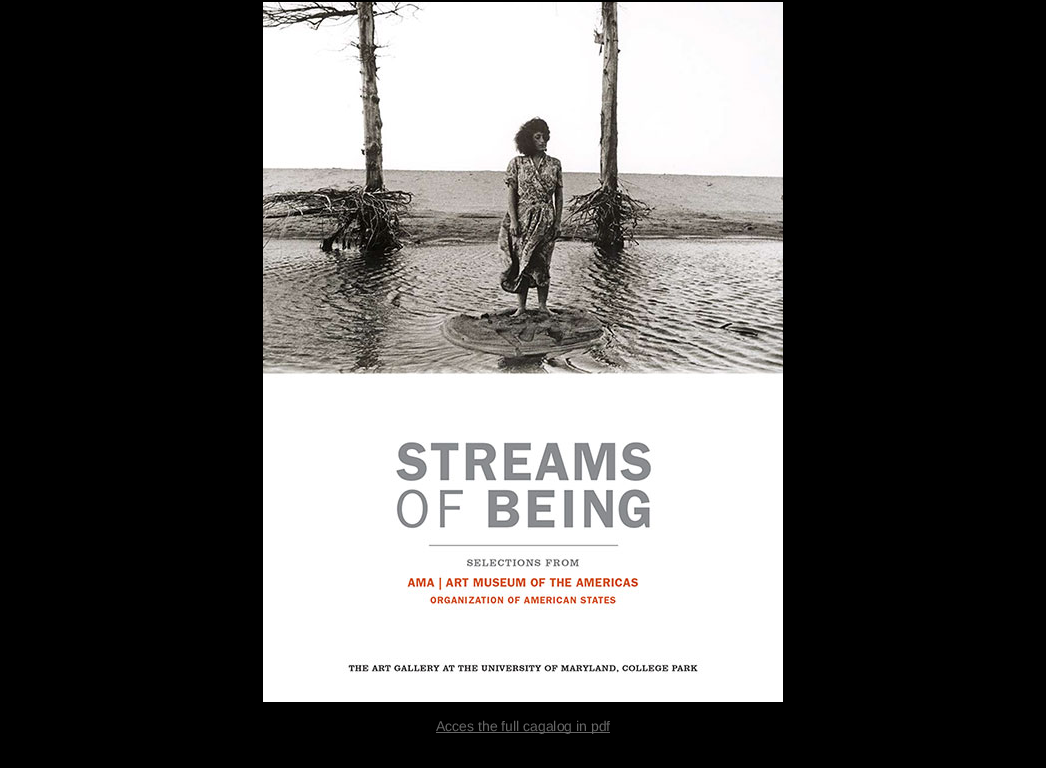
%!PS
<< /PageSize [1046 768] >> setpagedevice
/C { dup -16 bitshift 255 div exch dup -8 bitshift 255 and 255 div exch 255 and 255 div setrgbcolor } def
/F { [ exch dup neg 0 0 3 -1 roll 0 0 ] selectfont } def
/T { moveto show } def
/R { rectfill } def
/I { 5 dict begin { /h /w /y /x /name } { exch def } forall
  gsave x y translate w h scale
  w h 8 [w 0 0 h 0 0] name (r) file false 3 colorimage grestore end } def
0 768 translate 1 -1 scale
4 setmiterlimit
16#000000 C
0 0 1046 768 R
(1.rgb) 263 2 520 700 I
16#666666 C
436 732 174 1 R
/LiberationSans-Regular 14 F
(Acces the full cagalog in pdf) 436 731 T
showpage
